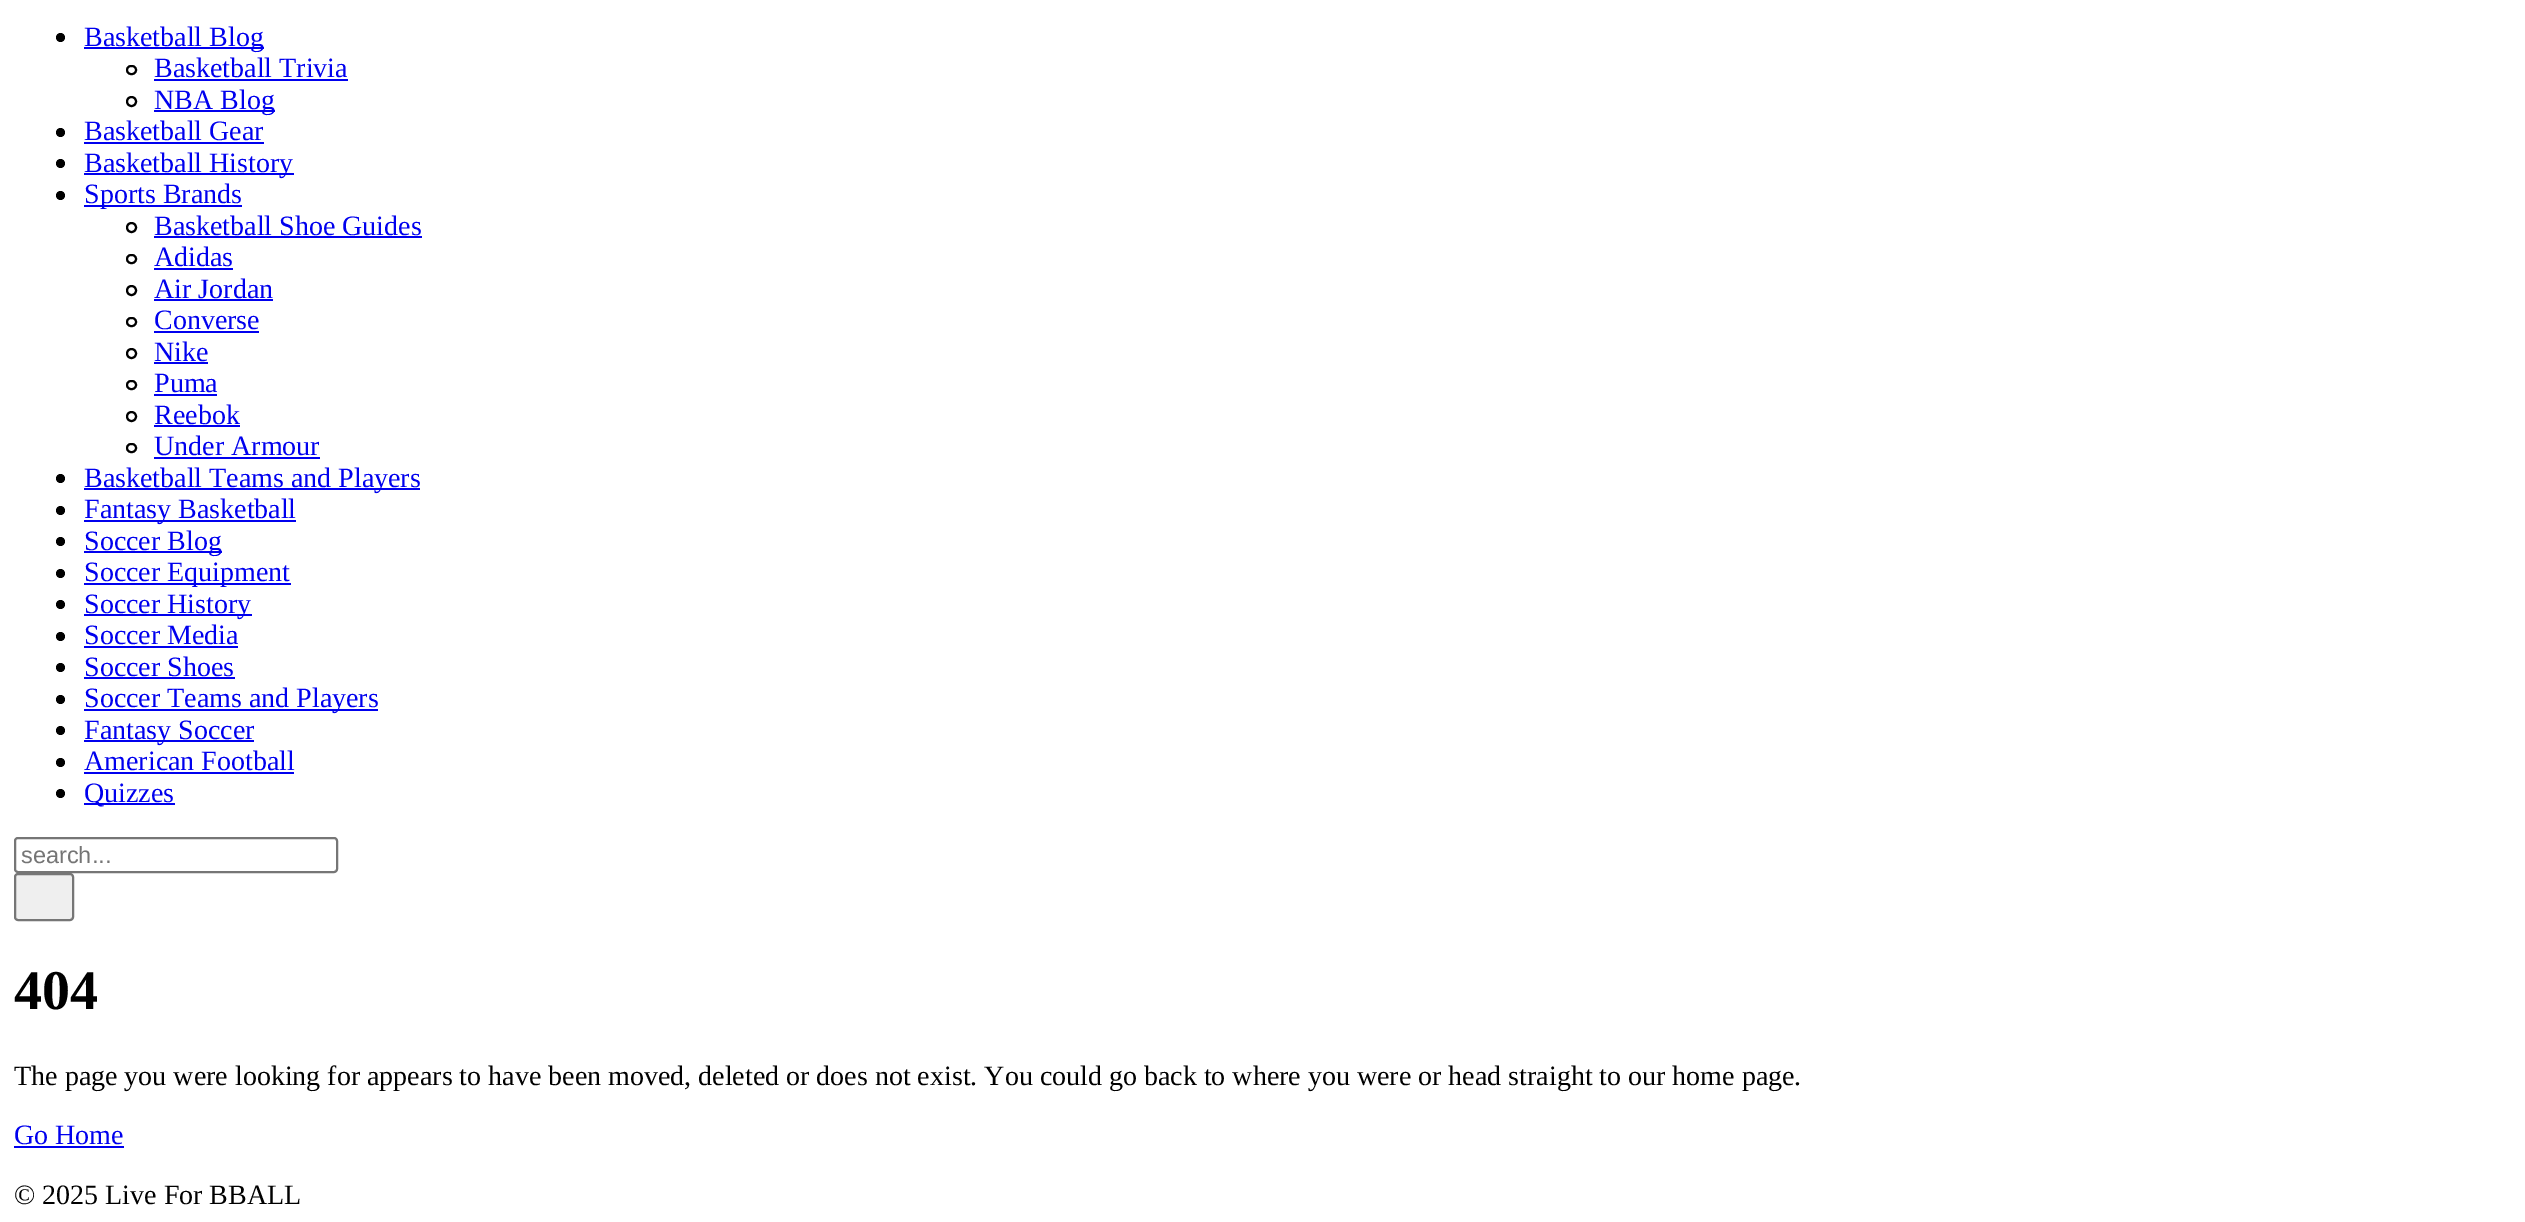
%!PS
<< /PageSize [2525 1222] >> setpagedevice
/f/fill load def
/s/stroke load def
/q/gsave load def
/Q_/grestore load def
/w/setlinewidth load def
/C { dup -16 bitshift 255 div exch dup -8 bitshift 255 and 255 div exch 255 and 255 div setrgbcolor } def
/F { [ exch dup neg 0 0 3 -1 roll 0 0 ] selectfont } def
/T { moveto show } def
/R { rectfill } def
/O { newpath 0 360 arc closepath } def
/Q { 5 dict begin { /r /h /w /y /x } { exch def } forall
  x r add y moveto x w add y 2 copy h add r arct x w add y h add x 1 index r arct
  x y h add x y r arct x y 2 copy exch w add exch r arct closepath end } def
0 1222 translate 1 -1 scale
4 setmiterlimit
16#FFFFFF C
0 0 2525 1222 R
16#000000 C
60.5 37.5 4.5 O f
16#0000EE C
84 47 180 2 R
/LiberationSerif-Regular 28 F
(Basketball Blog) 84 46 T
16#000000 C
2 w
127 66 9 8 4 Q s
16#0000EE C
(Basketball Trivia) 154 77 T
154 79 194 2 R
16#000000 C
131.5 101.5 4.5 O s
16#0000EE C
154 110 121 2 R
(NBA Blog) 154 109 T
16#000000 C
60.5 132.5 4.5 O f
16#0000EE C
(Basketball Gear) 84 140 T
84 142 180 2 R
16#000000 C
60.5 163.5 4.5 O f
16#0000EE C
84 173 210 2 R
(Basketball History) 84 172 T
16#000000 C
60.5 195.5 4.5 O f
16#0000EE C
84 205 158 2 R
(Sports Brands) 84 203 T
16#000000 C
131.5 227.5 4.5 O s
16#0000EE C
(Basketball Shoe Guides) 154 235 T
154 236 268 2 R
16#000000 C
127 255 9 8 4 Q s
16#0000EE C
(Adidas) 154 266 T
154 268 79 2 R
16#000000 C
131.5 290.5 4.5 O s
16#0000EE C
(Air Jordan) 154 298 T
154 299 119 2 R
16#000000 C
127 318 9 8 4 Q s
16#0000EE C
(Converse) 154 329 T
154 331 105 2 R
16#000000 C
131.5 353.5 4.5 O s
16#0000EE C
(Nike) 154 361 T
154 362 54 2 R
16#000000 C
127 381 9 8 4 Q s
16#0000EE C
(Puma) 154 392 T
154 394 63 2 R
16#000000 C
131.5 416.5 4.5 O s
16#0000EE C
(Reebok) 154 424 T
154 425 86 2 R
16#000000 C
127 444 9 8 4 Q s
16#0000EE C
(Under Armour) 154 455 T
154 457 166 2 R
16#000000 C
60.5 478.5 4.5 O f
16#0000EE C
84 488 336 2 R
(Basketball Teams and Players) 84 487 T
16#000000 C
60.5 510.5 4.5 O f
16#0000EE C
84 520 212 2 R
(Fantasy Basketball) 84 518 T
16#000000 C
60.5 541.5 4.5 O f
16#0000EE C
84 551 138 2 R
(Soccer Blog) 84 550 T
16#000000 C
60.5 573.5 4.5 O f
16#0000EE C
84 583 207 2 R
(Soccer Equipment) 84 581 T
16#000000 C
60.5 604.5 4.5 O f
16#0000EE C
84 614 168 2 R
(Soccer History) 84 613 T
16#000000 C
60.5 636.5 4.5 O f
16#0000EE C
(Soccer Media) 84 644 T
84 646 154 2 R
16#000000 C
60.5 667.5 4.5 O f
16#0000EE C
(Soccer Shoes) 84 676 T
84 677 151 2 R
16#000000 C
60.5 699.5 4.5 O f
16#0000EE C
84 709 294 2 R
(Soccer Teams and Players) 84 707 T
16#000000 C
60.5 730.5 4.5 O f
16#0000EE C
84 740 170 2 R
(Fantasy Soccer) 84 739 T
16#000000 C
60.5 762.5 4.5 O f
16#0000EE C
(American Football) 84 770 T
84 772 210 2 R
16#000000 C
60.5 793.5 4.5 O f
16#0000EE C
84 803 91 2 R
(Quizzes) 84 802 T
16#767676 C
15 838 322 34 3 Q s
/LiberationSans-Regular 23.5 F
16#757575 C
(search...) 21 863 T
16#EFEFEF C
15 874 58 46 3 Q q f Q_
16#767676 C
s
/LiberationSerif-Bold 56 F
16#000000 C
(404) 14 1009 T
/LiberationSerif-Regular 28 F
(The page you were looking for appears to have been moved, deleted or does not exist. You could go back to where you were or head straight to our home page.) 14 1085 T
16#0000EE C
(Go Home) 14 1144 T
14 1146 110 2 R
16#000000 C
(© 2025 Live For BBALL) 14 1204 T
showpage
